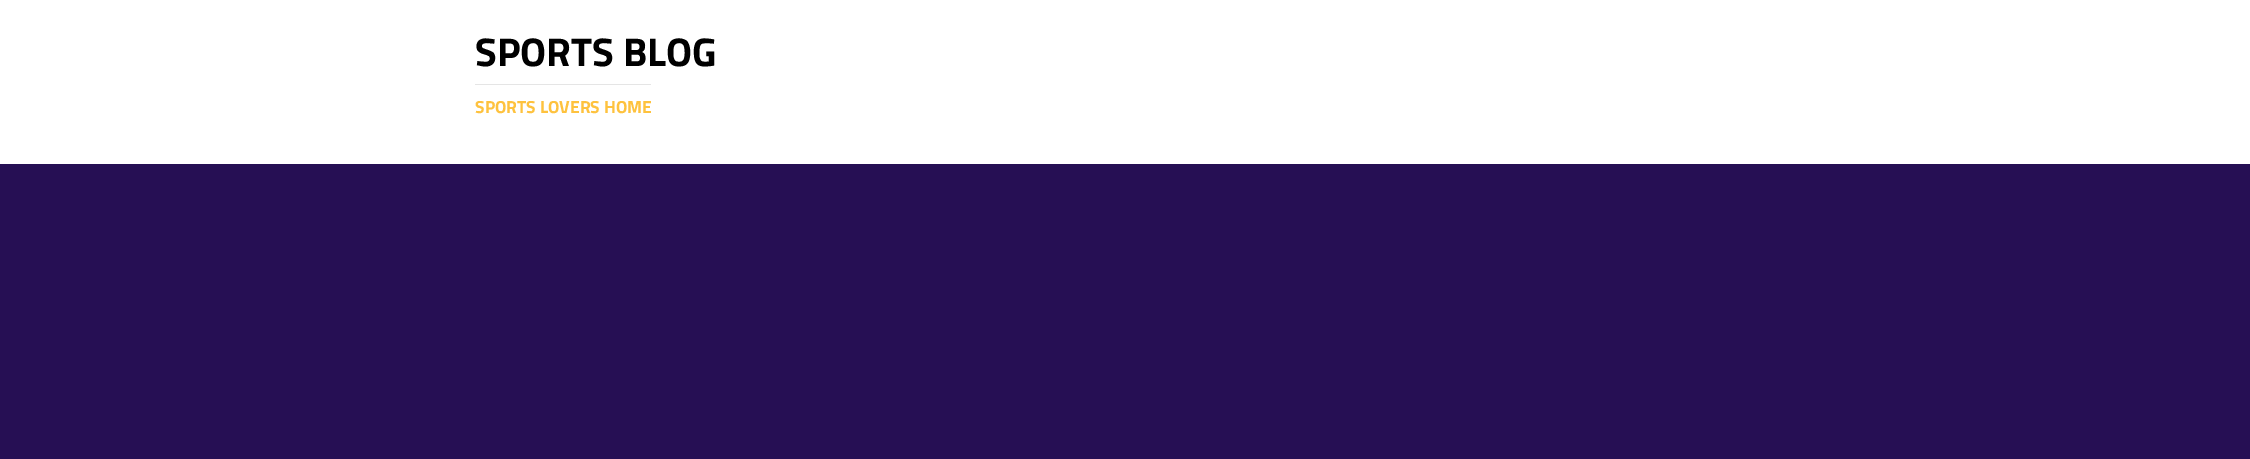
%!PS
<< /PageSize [2250 459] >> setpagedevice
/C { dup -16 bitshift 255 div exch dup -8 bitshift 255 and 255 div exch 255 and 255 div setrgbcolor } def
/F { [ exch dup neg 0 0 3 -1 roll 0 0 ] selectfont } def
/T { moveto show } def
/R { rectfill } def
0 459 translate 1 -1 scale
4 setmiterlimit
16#FFFFFF C
0 0 2250 459 R
/TitilliumWeb-Bold 40 F
16#000000 C
(SPORTS BLOG) 475 66 T
16#E5E5E5 C
475 84 176 1 R
/TitilliumWeb-Bold 17.5 F
16#FEC23E C
(SPORTS LOVERS HOME) 475 113 T
16#260F54 C
0 164 2250 295 R
showpage
